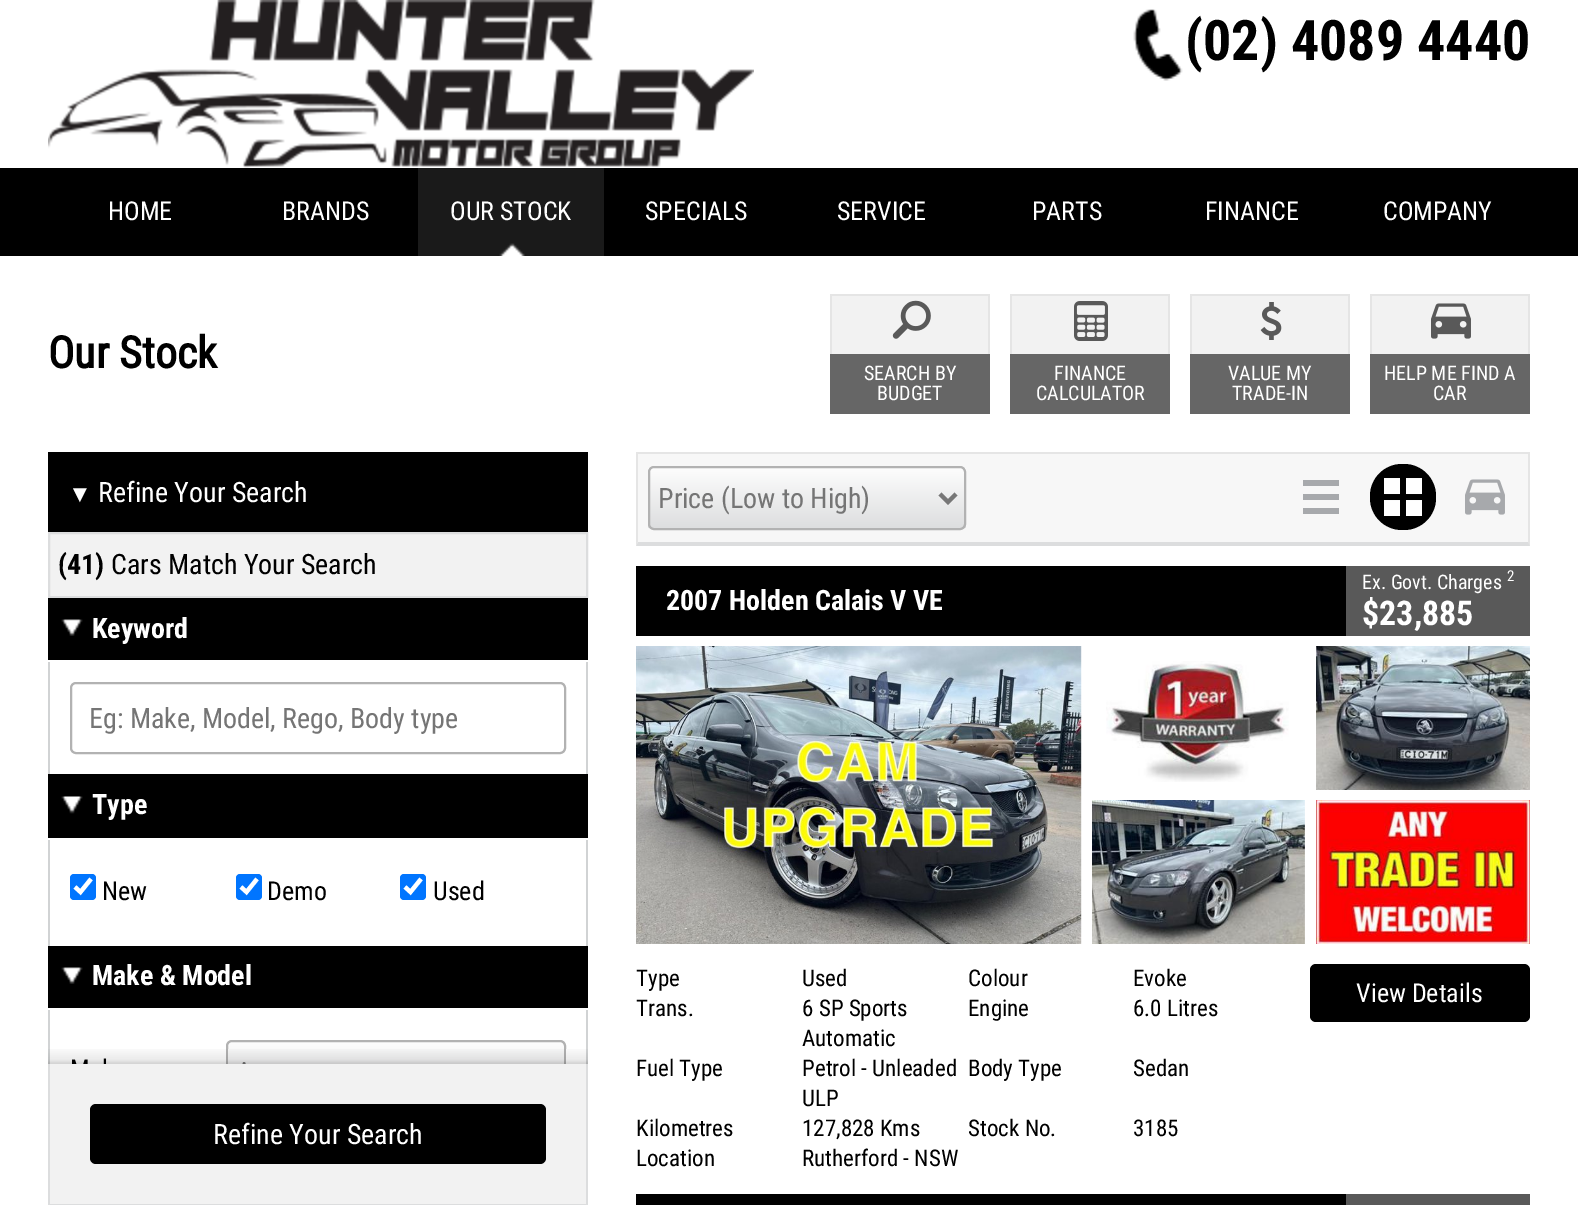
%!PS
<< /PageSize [1578 1205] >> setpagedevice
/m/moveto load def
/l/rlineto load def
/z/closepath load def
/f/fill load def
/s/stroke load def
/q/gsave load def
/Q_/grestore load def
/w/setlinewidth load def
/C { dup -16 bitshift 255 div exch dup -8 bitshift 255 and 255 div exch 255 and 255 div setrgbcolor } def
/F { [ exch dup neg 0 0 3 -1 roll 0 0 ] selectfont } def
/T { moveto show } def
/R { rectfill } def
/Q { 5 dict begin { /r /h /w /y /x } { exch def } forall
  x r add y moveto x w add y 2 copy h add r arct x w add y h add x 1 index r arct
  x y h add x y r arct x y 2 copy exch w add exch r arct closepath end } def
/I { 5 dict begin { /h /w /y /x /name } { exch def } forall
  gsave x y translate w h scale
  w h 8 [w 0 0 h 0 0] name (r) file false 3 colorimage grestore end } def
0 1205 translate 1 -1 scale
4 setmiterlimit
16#FFFFFF C
0 0 1578 1205 R
(1.rgb) 48 0 706 168 I
(2.rgb) 1133 9 50 72 I
/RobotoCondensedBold-Bold 56 F
16#000000 C
(\(02\) 4089 4440) 1185 60 T
0 168 1578 88 R
/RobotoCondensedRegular-Regular 26 F
16#FFFFFF C
(HOME) 108 220 T
(BRANDS) 282 220 T
16#1A1A1A C
418 168 186 88 R
(3.rgb) 499 243 26 13 I
16#FFFFFF C
(OUR STOCK) 450 220 T
(SPECIALS) 645 220 T
(SERVICE) 837 220 T
(PARTS) 1032 220 T
(FINANCE) 1205 220 T
(COMPANY) 1383 220 T
/RobotoCondensedRegular-Bold 44 F
16#000000 C
(Our Stock) 48 368 T
16#F2F2F2 C
832 296 156 58 R
16#E5E5E5 C
830 294 160 2 R
988 294 2 60 R
830 294 2 60 R
(4.rgb) 892 300 39 39 I
16#666666 C
830 354 160 60 R
/RobotoCondensedRegular-Regular 20 F
16#FFFFFF C
(SEARCH BY) 864 380 T
(BUDGET) 877 400 T
16#F2F2F2 C
1012 296 156 58 R
16#E5E5E5 C
1010 294 160 2 R
1168 294 2 60 R
1010 294 2 60 R
(5.rgb) 1074 301 34 40 I
16#666666 C
1010 354 160 60 R
16#FFFFFF C
(FINANCE) 1054 380 T
(CALCULATOR) 1036 400 T
16#F2F2F2 C
1192 296 156 58 R
16#E5E5E5 C
1190 294 160 2 R
1348 294 2 60 R
1190 294 2 60 R
(6.rgb) 1260 302 22 38 I
16#666666 C
1190 354 160 60 R
16#FFFFFF C
(VALUE MY) 1228 380 T
(TRADE-IN) 1232 400 T
16#F2F2F2 C
1372 296 156 58 R
16#E5E5E5 C
1370 294 160 2 R
1528 294 2 60 R
1370 294 2 60 R
(7.rgb) 1431 303 40 36 I
16#666666 C
1370 354 160 60 R
16#FFFFFF C
(HELP ME FIND A) 1384 380 T
(CAR) 1433 400 T
16#000000 C
48 452 540 80 R
/LiberationSans-Regular 24 F
16#FFFFFF C
(▼) 68 502 T
/RobotoCondensedRegular-Regular 28 F
(Refine Your Search) 98 502 T
16#F2F2F2 C
49 533 m 538 0 l 0 64 l -538 0 l z q f Q_
16#DCDDDE C
2 w
s
/RobotoCondensedBold-Bold 28 F
16#000000 C
(\(41\)) 58 574 T
/RobotoCondensedRegular-Regular 28 F
(Cars Match Your Search) 111 574 T
48 598 540 62 R
(8.rgb) 61 619 22 17 I
/RobotoCondensedBold-Bold 28 F
16#FFFFFF C
(Keyword) 92 638 T
16#D1D3D4 C
586 662 2 112 R
48 662 2 112 R
16#B2B2B2 C
71 683 494 70 5 Q s
/RobotoCondensedRegular-Regular 28 F
16#757575 C
(Eg: Make, Model, Rego, Body type) 89 728 T
16#000000 C
48 774 540 64 R
(9.rgb) 61 796 22 18 I
/RobotoCondensedBold-Bold 28 F
16#FFFFFF C
(Type) 92 814 T
16#D1D3D4 C
586 840 2 106 R
48 840 2 106 R
16#0075FF C
70 874 26 26 4 Q f
16#FFFFFF C
4.2 w
75 887 m 5.5 5 l 10.5 -13 l s
/RobotoCondensedRegular-Regular 26 F
16#000000 C
(New) 102 900 T
16#0075FF C
236 874 26 26 4 Q f
16#FFFFFF C
241 887 m 5.5 5 l 10.5 -13 l s
16#000000 C
(Demo) 267 900 T
16#0075FF C
400 874 26 26 4 Q f
16#FFFFFF C
405 887 m 5.5 5 l 10.5 -13 l s
16#000000 C
(Used) 433 900 T
48 946 540 62 R
(8.rgb) 61 967 22 17 I
/RobotoCondensedBold-Bold 28 F
16#FFFFFF C
(Make & Model) 92 985 T
16#D1D3D4 C
586 1010 2 54 R
48 1010 2 54 R
q
226 1040 340 64 6 Q clip newpath
q 226 1042 m 340 0 l 0 22 l -340 0 l z clip newpath
<< /ShadingType 2 /ColorSpace /DeviceRGB /Coords [396 1042 396 1102] /Extend [true true] /Function << /FunctionType 2 /Domain [0 1] /C0 [.992 .992 .992] /C1 [.867 .871 .875] /N 1 >> >> shfill Q_
Q_
16#B2B2B2 C
2 w
227 1041 338 62 5 Q s
(10.rgb) 48 1049 540 15 I
16#F2F2F2 C
50 1064 536 140 R
16#DCDDDE C
586 1064 2 141 R
48 1204 540 1 R
48 1064 2 141 R
16#000000 C
90 1104 456 60 6 Q f
/RobotoCondensedRegular-Regular 28 F
16#FFFFFF C
(Refine Your Search) 213 1144 T
16#F7F7F7 C
638 454 890 88 R
16#E5E5E5 C
636 452 894 2 R
1530 452 m 0 94 l -2 -4 l 0 -88 l z f
16#DCDDDE C
1530 546 m -894 0 l 2 -4 l 890 0 l z f
16#E5E5E5 C
636 546 m 0 -94 l 2 2 l 0 88 l z f
q
648 466 318 64 6 Q clip newpath
q 648 468 m 318 0 l 0 60 l -318 0 l z clip newpath
<< /ShadingType 2 /ColorSpace /DeviceRGB /Coords [807 468 807 528] /Extend [true true] /Function << /FunctionType 2 /Domain [0 1] /C0 [.992 .992 .992] /C1 [.867 .871 .875] /N 1 >> >> shfill Q_
Q_
16#B2B2B2 C
649 467 316 62 5 Q s
16#777777 C
4 w
940 494 m 8 8 l 8 -8 l s
16#757575 C
(Price \(Low to High\)) 658 508 T
16#A7A9AC C
1339 486 m -36 0 l 0 -6 l 36 0 l z 1339 494 m -36 0 l 0 6 l 36 0 l z 1339 508 m -36 0 l 0 6 l 36 0 l z f
16#000000 C
1370 464 66 66 32 Q f
(11.rgb) 1384 478 38 38 I
(12.rgb) 1465 479 40 36 I
636 566 710 70 R
/RobotoCondensedBold-Bold 28 F
16#FFFFFF C
(2007 Holden Calais V VE) 666 610 T
16#595959 C
1346 566 184 70 R
/RobotoCondensedRegular-Regular 20 F
16#FFFFFF C
(Ex. Govt. Charges) 1362 589 T
/RobotoCondensedRegular-Regular 15 F
(2) 1507 581 T
/RobotoCondensedBold-Bold 34 F
($23,885) 1362 625 T
(13.rgb) 636 646 446 298 I
(14.rgb) 1106 661 183 121 I
(15.rgb) 1316 646 214 144 I
(16.rgb) 1092 800 213 144 I
(17.rgb) 1316 800 214 144 I
/RobotoCondensedRegular-Regular 23 F
16#000000 C
(Type) 636 986 T
(Used) 802 986 T
(Colour) 968 986 T
(Evoke) 1133 986 T
(Trans.) 636 1016 T
(6 SP Sports) 802 1016 T
(Automatic) 802 1046 T
(Engine) 968 1016 T
(6.0 Litres) 1133 1016 T
(Fuel Type) 636 1076 T
(Petrol - Unleaded) 802 1076 T
(ULP) 802 1106 T
(Body Type) 968 1076 T
(Sedan) 1133 1076 T
(Kilometres) 636 1136 T
(127,828 Kms) 802 1136 T
(Stock No.) 968 1136 T
(3185) 1133 1136 T
(Location) 636 1166 T
(Rutherford - NSW) 802 1166 T
1310 964 220 58 6 Q f
/RobotoCondensedRegular-Regular 26 F
16#FFFFFF C
(View Details) 1356 1002 T
16#000000 C
636 1194 710 11 R
16#595959 C
1346 1194 184 11 R
showpage
